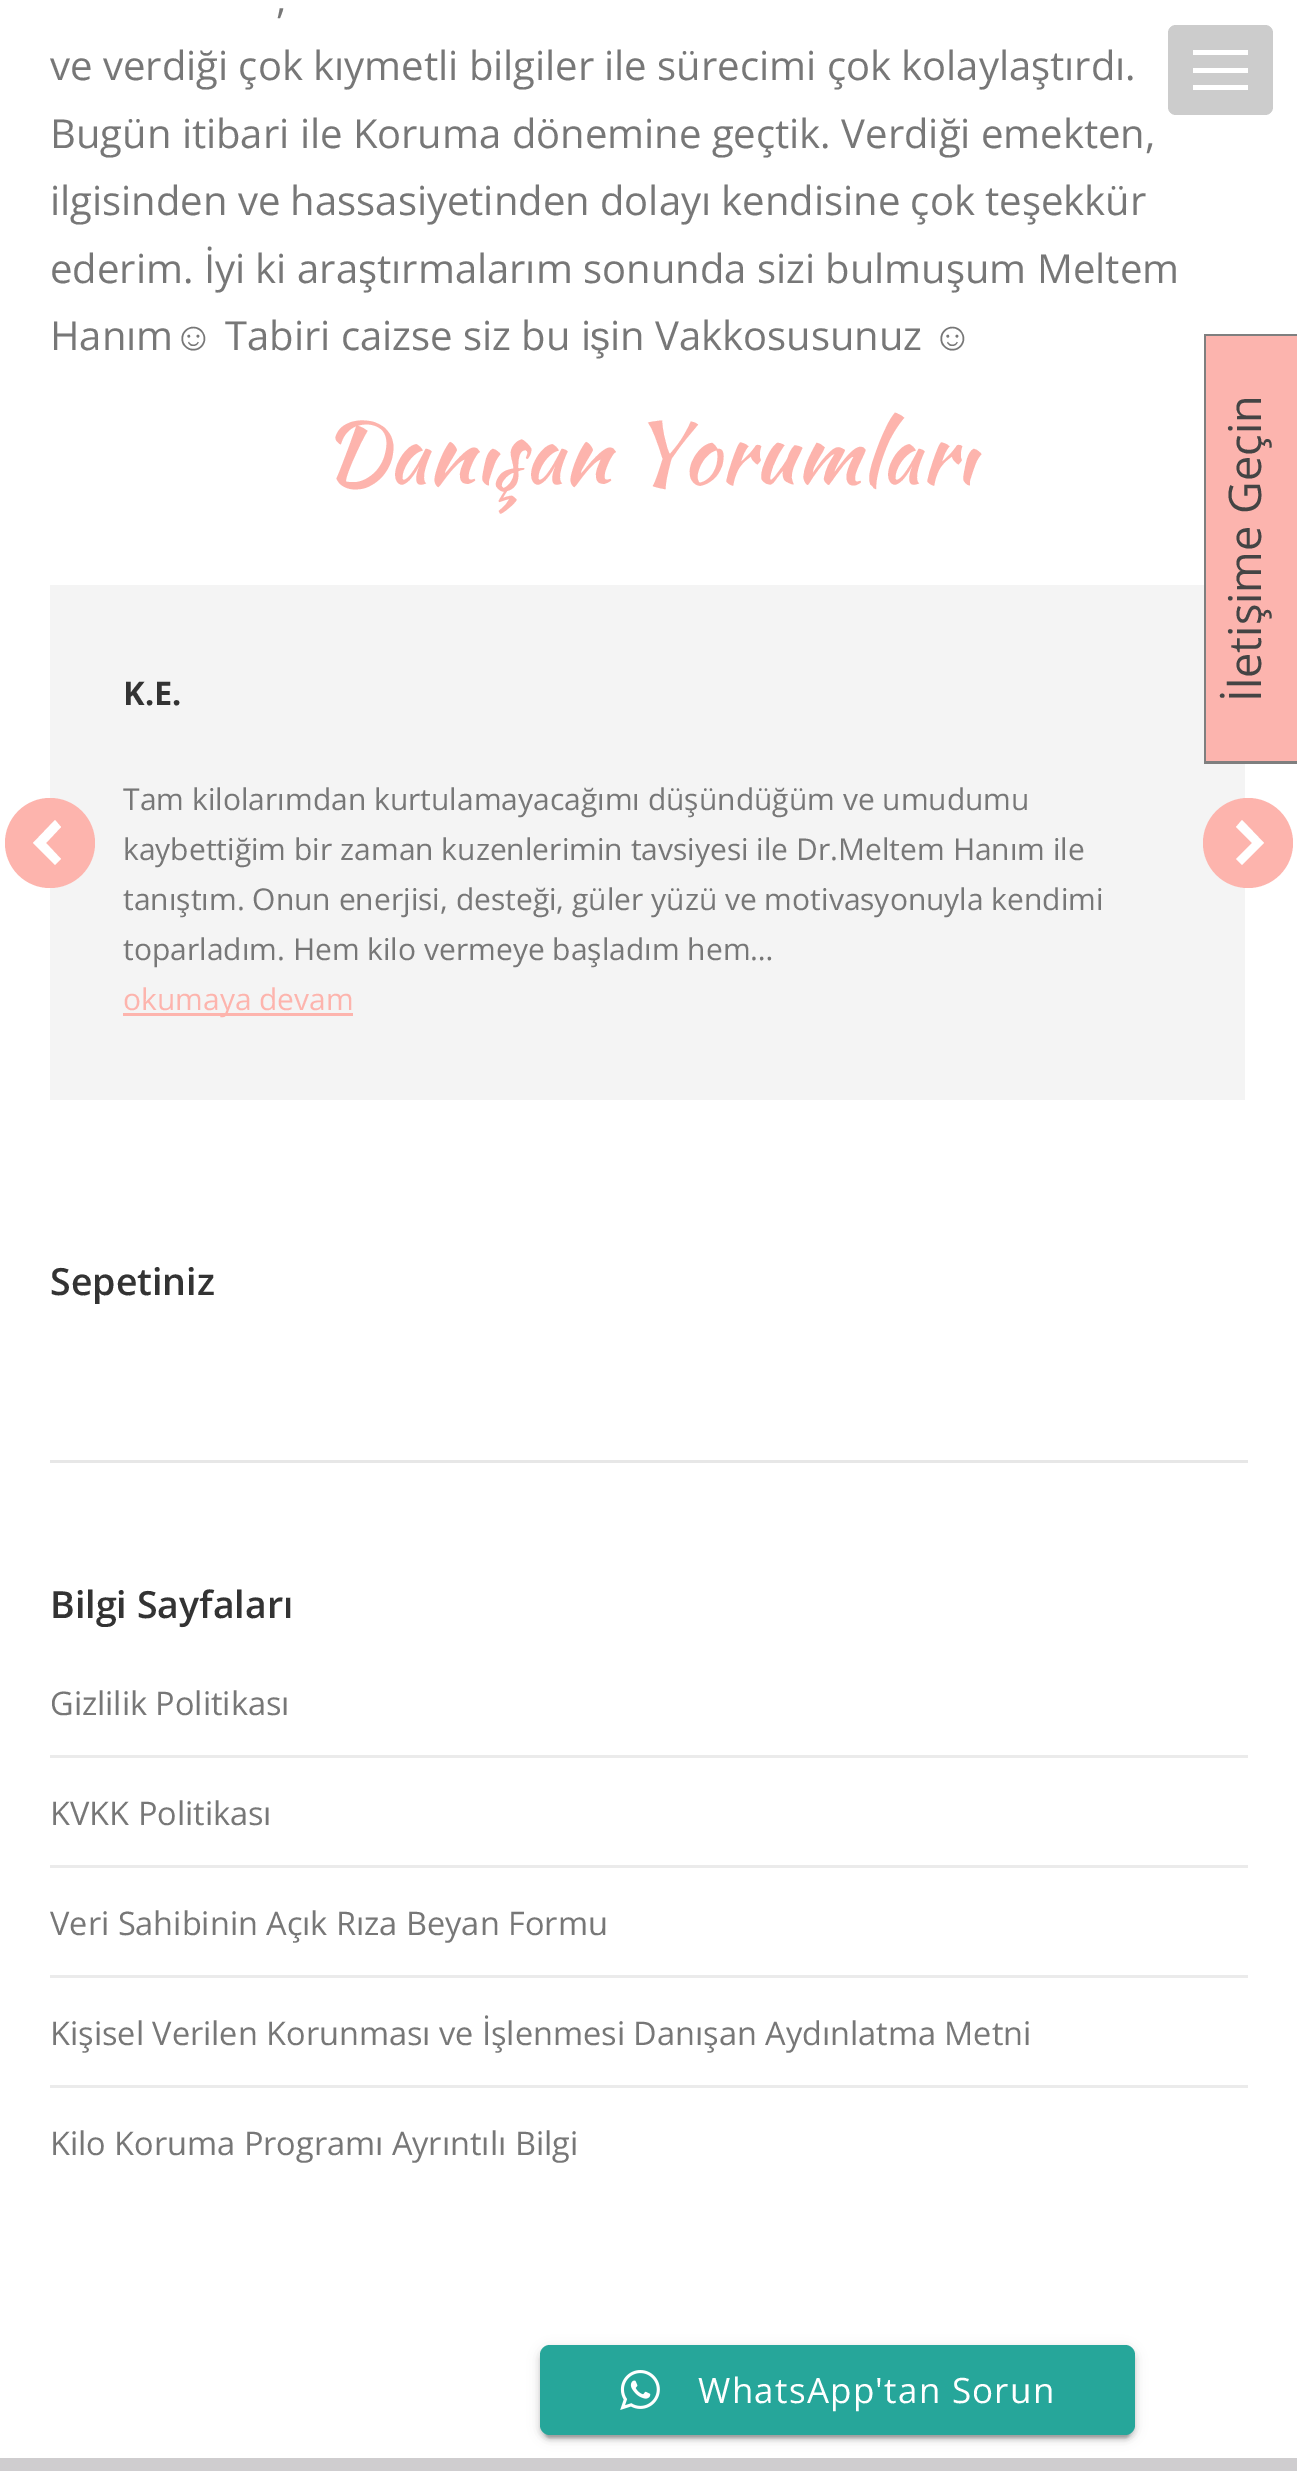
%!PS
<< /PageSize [1297 2471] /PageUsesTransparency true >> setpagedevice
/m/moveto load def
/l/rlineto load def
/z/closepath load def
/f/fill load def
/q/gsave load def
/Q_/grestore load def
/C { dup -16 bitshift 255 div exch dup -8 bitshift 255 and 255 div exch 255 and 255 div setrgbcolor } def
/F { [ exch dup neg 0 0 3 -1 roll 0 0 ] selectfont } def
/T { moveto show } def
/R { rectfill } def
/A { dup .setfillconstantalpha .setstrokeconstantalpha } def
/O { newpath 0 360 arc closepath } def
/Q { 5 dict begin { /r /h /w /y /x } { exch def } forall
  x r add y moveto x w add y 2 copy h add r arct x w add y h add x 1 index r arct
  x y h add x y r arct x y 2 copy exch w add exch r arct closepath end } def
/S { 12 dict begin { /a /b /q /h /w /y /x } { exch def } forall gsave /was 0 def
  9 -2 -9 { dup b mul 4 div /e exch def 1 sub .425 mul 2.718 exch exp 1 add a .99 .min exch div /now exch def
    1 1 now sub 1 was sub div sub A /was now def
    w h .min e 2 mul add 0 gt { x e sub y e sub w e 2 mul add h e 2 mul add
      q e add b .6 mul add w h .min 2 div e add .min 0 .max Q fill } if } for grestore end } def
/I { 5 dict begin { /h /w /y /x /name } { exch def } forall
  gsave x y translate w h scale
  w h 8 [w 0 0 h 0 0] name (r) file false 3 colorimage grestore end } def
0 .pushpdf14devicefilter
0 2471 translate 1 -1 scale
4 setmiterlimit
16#FFFFFF C
0 0 1297 2471 R
/OpenSans-Regular 40 F
16#777777 C
(,) 276 13 T
(ve verdiği çok kıymetli bilgiler ile sürecimi çok kolaylaştırdı.) 50 80 T
(Bugün itibari ile Koruma dönemine geçtik. Verdiği emekten,) 50 148 T
(ilgisinden ve hassasiyetinden dolayı kendisine çok teşekkür) 50 215 T
(ederim. İyi ki araştırmalarım sonunda sizi bulmuşum Meltem) 50 283 T
(Hanım) 50 350 T
/LiberationSans-Regular 40 F
(☺) 173 350 T
/OpenSans-Regular 40 F
(Tabiri caizse siz bu i) 225 350 T
/LiberationSans-Regular 40 F
(ş) 590 350 T
/OpenSans-Regular 40 F
(in Vakkosusunuz) 610 350 T
/LiberationSans-Regular 40 F
(☺) 932 350 T
/KaushanScript-Regular 85 F
16#FDB4AD C
(Danışan Yorumları) 322 483 T
16#F4F4F4 C
50 585 1195 515 R
/OpenSans-Bold 32.5 F
16#333333 C
(K.E.) 123 705 T
/OpenSans-Regular 30 F
16#777777 C
(Tam kilolarımdan kurtulamayacağımı düşündüğüm ve umudumu) 123 810 T
(kaybettiğim bir zaman kuzenlerimin tavsiyesi ile Dr.Meltem Hanım ile) 123 860 T
(tanıştım. Onun enerjisi, desteği, güler yüzü ve motivasyonuyla kendimi) 123 910 T
(toparladım. Hem kilo vermeye başladım hem…) 123 960 T
16#FDB4AD C
123 1013 230 3 R
(okumaya devam) 123 1010 T
50 843 45 O f
16#FFFFFF C
61 859 m -15 -16 l 15 -16 l -6 -7 l -22 23 l 22 22 l z f
16#FDB4AD C
1248 843 45 O f
16#FFFFFF C
1242 865 m 22 -22 l -22 -23 l -6 7 l 16 16 l -16 16 l z f
/OpenSans-SemiBold 37.5 F
16#333333 C
(Sepetiniz) 50 1295 T
16#E7E7E7 C
50 1460 1198 3 R
16#333333 C
(Bilgi Sayfaları) 50 1618 T
/OpenSans-Regular 32.5 F
16#777777 C
(Gizlilik Politikası) 50 1715 T
16#EBEBEB C
50 1755 1198 3 R
16#777777 C
(KVKK Politikası) 50 1825 T
16#EBEBEB C
50 1865 1198 3 R
16#777777 C
(Veri Sahibinin Açık Rıza Beyan Formu) 50 1935 T
16#EBEBEB C
50 1975 1198 3 R
16#777777 C
(Kişisel Verilen Korunması ve İşlenmesi Danışan Aydınlatma Metni) 50 2045 T
16#EBEBEB C
50 2085 1198 3 R
16#777777 C
(Kilo Koruma Programı Ayrıntılı Bilgi) 50 2155 T
16#CCCCCC C
1168 25 105 90 8 Q f
16#FFFFFF C
1193 50 55 5 R
1193 68 55 5 R
1193 85 55 5 R
16#CFCDCF C
0 2458 1297 13 R
16#FCB4AE C
1206 336 91 425 R
16#7F7F7F C
1204 334 2 430 R
1204 334 93 2 R
1204 761 93 3 R
/OpenSans-Regular 45 F
16#444444 C
q 1261 702 translate -90 rotate 0 0 m (İletişime Geçin) show Q_
16#000000 C
545 2358 585 80 5 1 .2 S
540 2348 595 90 10 6 .12 S
540 2350 595 90 10 2.5 .14 S
16#26A69A C
540 2345 595 90 10 Q f
(1.rgb) 620 2370 40 40 I
/OpenSans-Regular 35 F
16#FFFFFF C
698 2403 m 1.25 0 (WhatsApp'tan Sorun) ashow
.poppdf14devicefilter showpage
